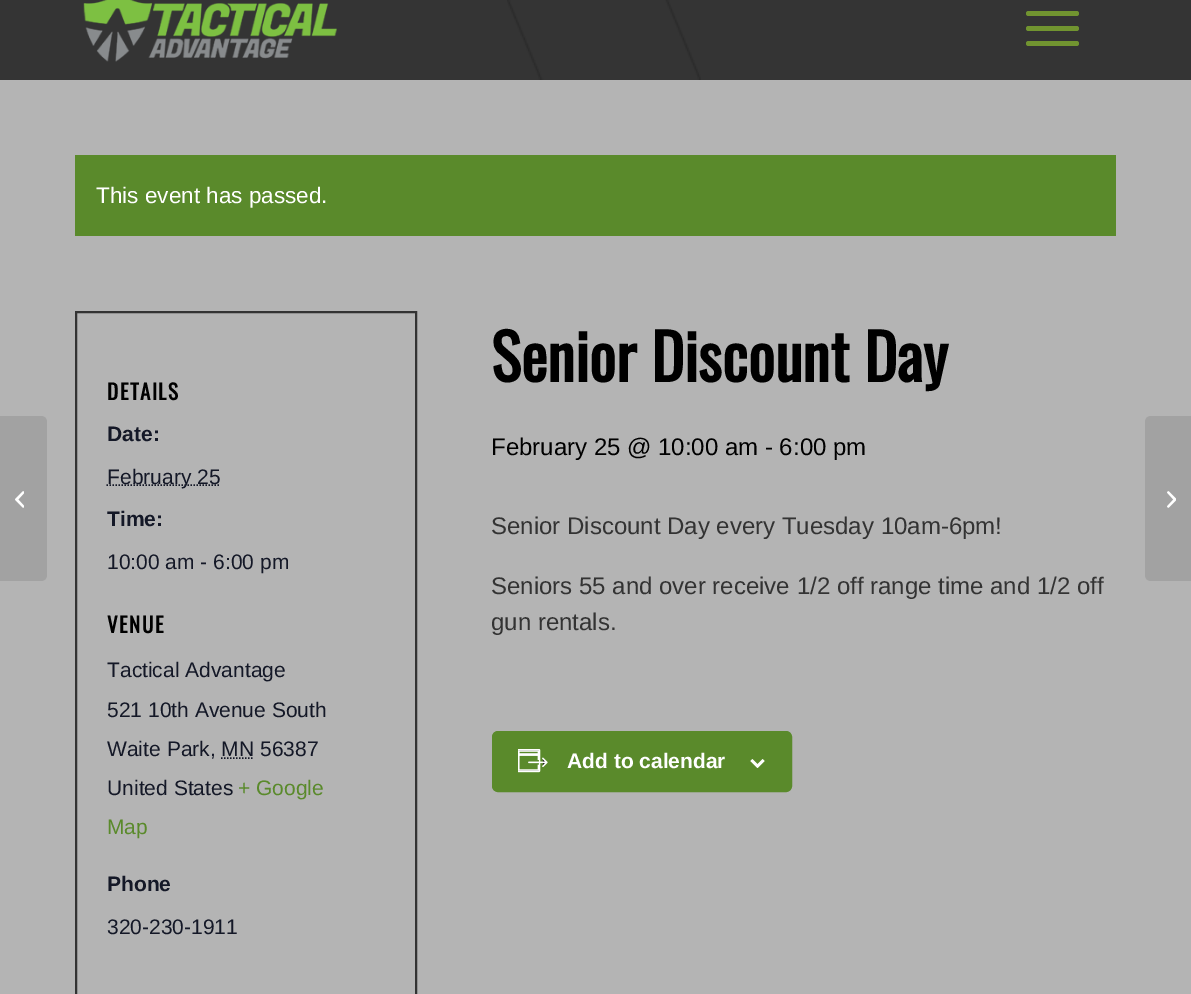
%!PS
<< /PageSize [1191 994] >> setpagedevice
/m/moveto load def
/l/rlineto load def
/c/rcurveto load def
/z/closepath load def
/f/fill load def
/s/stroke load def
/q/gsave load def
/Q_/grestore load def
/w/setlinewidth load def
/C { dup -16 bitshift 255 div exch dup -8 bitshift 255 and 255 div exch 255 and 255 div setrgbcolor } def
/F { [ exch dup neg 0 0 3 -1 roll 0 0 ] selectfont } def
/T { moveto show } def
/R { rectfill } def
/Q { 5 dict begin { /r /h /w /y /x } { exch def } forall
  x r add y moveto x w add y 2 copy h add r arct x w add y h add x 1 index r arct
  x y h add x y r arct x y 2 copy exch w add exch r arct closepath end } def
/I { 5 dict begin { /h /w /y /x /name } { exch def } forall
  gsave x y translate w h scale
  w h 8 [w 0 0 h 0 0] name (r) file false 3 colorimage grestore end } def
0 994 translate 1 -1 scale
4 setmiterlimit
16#B4B4B4 C
0 0 1191 994 R
16#343434 C
0 0 1191 80 R
(1.rgb) 507 0 194 80 I
(2.rgb) 83 0 254 62 I
16#719430 C
1026 26 53 5 2.5 Q f
1026 11 53 5 2.5 Q f
1026 41 53 5 2.5 Q f
16#A2A2A2 C
0 416 m 41 0 l 3.5 0 6 2.5 6 6 c 0 153 l 0 3.5 -2.5 6 -6 6 c -41 0 l z f
(3.rgb) 15 491 9 17 I
16#5A8A2B C
75 155 1041 81 R
/LiberationSans-Regular 22.5 F
16#FFFFFF C
(This event has passed.) 96 203 T
16#333333 C
2 w
76 312 340 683 rectstroke
/Oswald-Bold 21 F
16#000000 C
107 400 m 1.5 0 (DETAILS) ashow
/LiberationSans-Bold 21 F
16#141827 C
(Date:) 107 441 T
1.5 w
[1.5 1.5] 0 setdash
106.5 485 m 113 0 l s
/LiberationSans-Regular 21 F
(February 25) 107 484 T
/LiberationSans-Bold 21 F
(Time:) 107 526 T
/LiberationSans-Regular 21 F
(10:00 am - 6:00 pm) 107 569 T
/Oswald-Bold 21 F
16#000000 C
107 633 m 1.5 0 (VENUE) ashow
/LiberationSans-Regular 21 F
16#141827 C
(Tactical Advantage) 107 677 T
(521 10th Avenue South) 107 717 T
(Waite Park, MN 56387) 107 756 T
221 758 m 32.5 0 l s
(United States) 107 795 T
16#5A8A2B C
(+ Google) 238 795 T
(Map) 107 834 T
/LiberationSans-Bold 21 F
16#141827 C
(Phone) 107 891 T
/LiberationSans-Regular 21 F
(320-230-1911) 107 934 T
/Oswald-Bold 63 F
16#000000 C
(Senior Discount Day) 491 382 T
/LiberationSans-Regular 24 F
(February 25 @ 10:00 am - 6:00 pm) 491 455 T
16#333333 C
(Senior Discount Day every Tuesday 10am-6pm!) 491 534 T
(Seniors 55 and over receive 1/2 off range time and 1/2 off) 491 594 T
(gun rentals.) 491 630 T
16#5A8A2B C
493 732 298 59 5 Q q f Q_
2 w
[] 0 setdash
s
(4.rgb) 518 749 30 24 I
/LiberationSans-Bold 21 F
16#FFFFFF C
(Add to calendar) 567 768 T
(5.rgb) 750 759 15 9 I
16#A2A2A2 C
1151 416 m 40 0 l 0 165 l -40 0 l -3.5 0 -6 -2.5 -6 -6 c 0 -153 l 0 -3.5 2.5 -6 6 -6 c z f
(6.rgb) 1167 491 9 17 I
showpage
